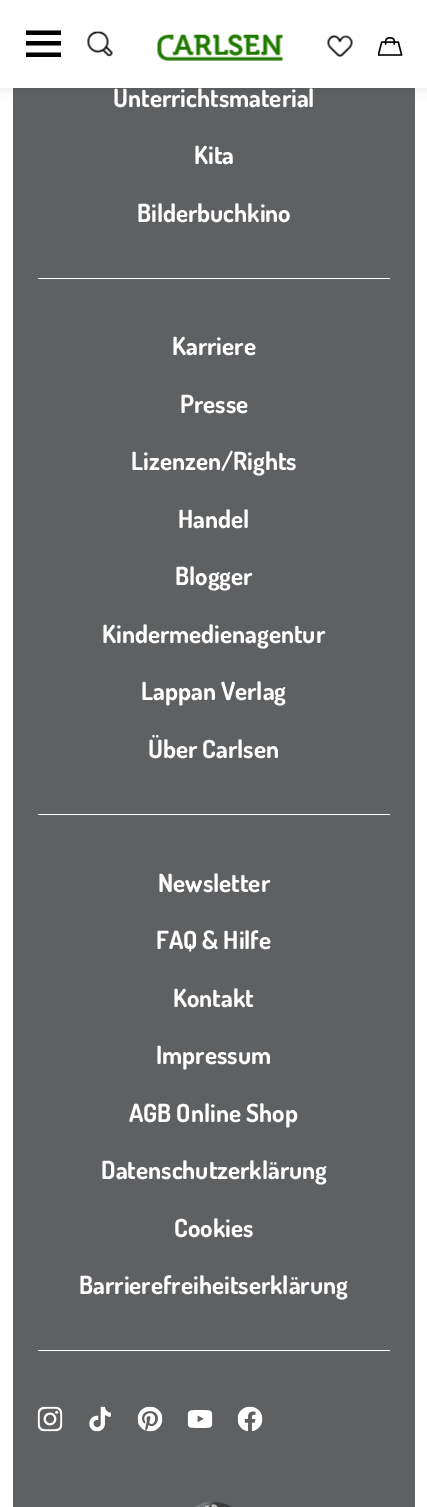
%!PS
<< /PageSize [427 1507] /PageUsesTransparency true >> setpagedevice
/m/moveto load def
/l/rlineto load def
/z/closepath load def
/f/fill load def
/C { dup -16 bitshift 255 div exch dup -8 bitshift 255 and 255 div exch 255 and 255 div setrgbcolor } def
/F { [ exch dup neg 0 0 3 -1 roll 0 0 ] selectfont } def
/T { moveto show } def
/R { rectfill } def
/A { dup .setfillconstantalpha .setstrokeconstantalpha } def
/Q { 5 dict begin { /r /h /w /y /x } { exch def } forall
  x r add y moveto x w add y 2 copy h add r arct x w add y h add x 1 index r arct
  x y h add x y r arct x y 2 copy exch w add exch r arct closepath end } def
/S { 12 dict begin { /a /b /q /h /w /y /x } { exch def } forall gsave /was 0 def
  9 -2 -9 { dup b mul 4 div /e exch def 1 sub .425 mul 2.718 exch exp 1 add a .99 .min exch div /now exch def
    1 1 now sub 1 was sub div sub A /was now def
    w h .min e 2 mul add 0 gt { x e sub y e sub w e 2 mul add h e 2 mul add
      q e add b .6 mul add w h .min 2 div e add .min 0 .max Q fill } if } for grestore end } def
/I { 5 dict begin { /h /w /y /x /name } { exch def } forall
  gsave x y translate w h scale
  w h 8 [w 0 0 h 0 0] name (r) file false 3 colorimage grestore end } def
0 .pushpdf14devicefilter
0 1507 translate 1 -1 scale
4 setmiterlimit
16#FFFFFF C
0 0 427 1507 R
16#5F6062 C
13 88 402 1419 R
16#000000 C
0 0 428 88 0 6 .1 S
16#FFFFFF C
0 0 427 88 R
16#000000 C
61 30.5 m 0 4.5 l -35 0 l 0 -4.5 l z 61 41 m 0 4.5 l -35 0 l 0 -4.5 l z 61 52.5 m 0 4.5 l -35 0 l 0 -4.5 l z f
(1.rgb) 87 30 26 27 I
(2.rgb) 157 33 126 28 I
(3.rgb) 327 34 26 23 I
(4.rgb) 378 37 25 19 I
16#FFFFFF C
38 278 352 1 R
/Dosis-Bold 25 F
(Unterrichtsmaterial) 113 107 T
(Kita) 194 164 T
(Bilderbuchkino) 137 222 T
38 814 352 1 R
(Karriere) 172 355 T
(Presse) 180 413 T
(Lizenzen/Rights) 131 470 T
(Handel) 178 528 T
(Blogger) 175 585 T
(Kindermedienagentur) 102 643 T
(Lappan Verlag) 141 700 T
(Über Carlsen) 148 758 T
38 1350 352 1 R
(Newsletter) 158 892 T
(FAQ & Hilfe) 156 949 T
(Kontakt) 173 1007 T
(Impressum) 156 1064 T
(AGB Online Shop) 129 1122 T
(Datenschutzerklärung) 101 1179 T
(Cookies) 174 1237 T
(Barrierefreiheitserklärung) 79 1294 T
(5.rgb) 37 1406 26 26 I
(6.rgb) 89 1406 22 26 I
(7.rgb) 137 1406 26 26 I
(8.rgb) 187 1410 26 18 I
(9.rgb) 237 1406 26 26 I
(10.rgb) 195 1501 37 6 I
.poppdf14devicefilter showpage
